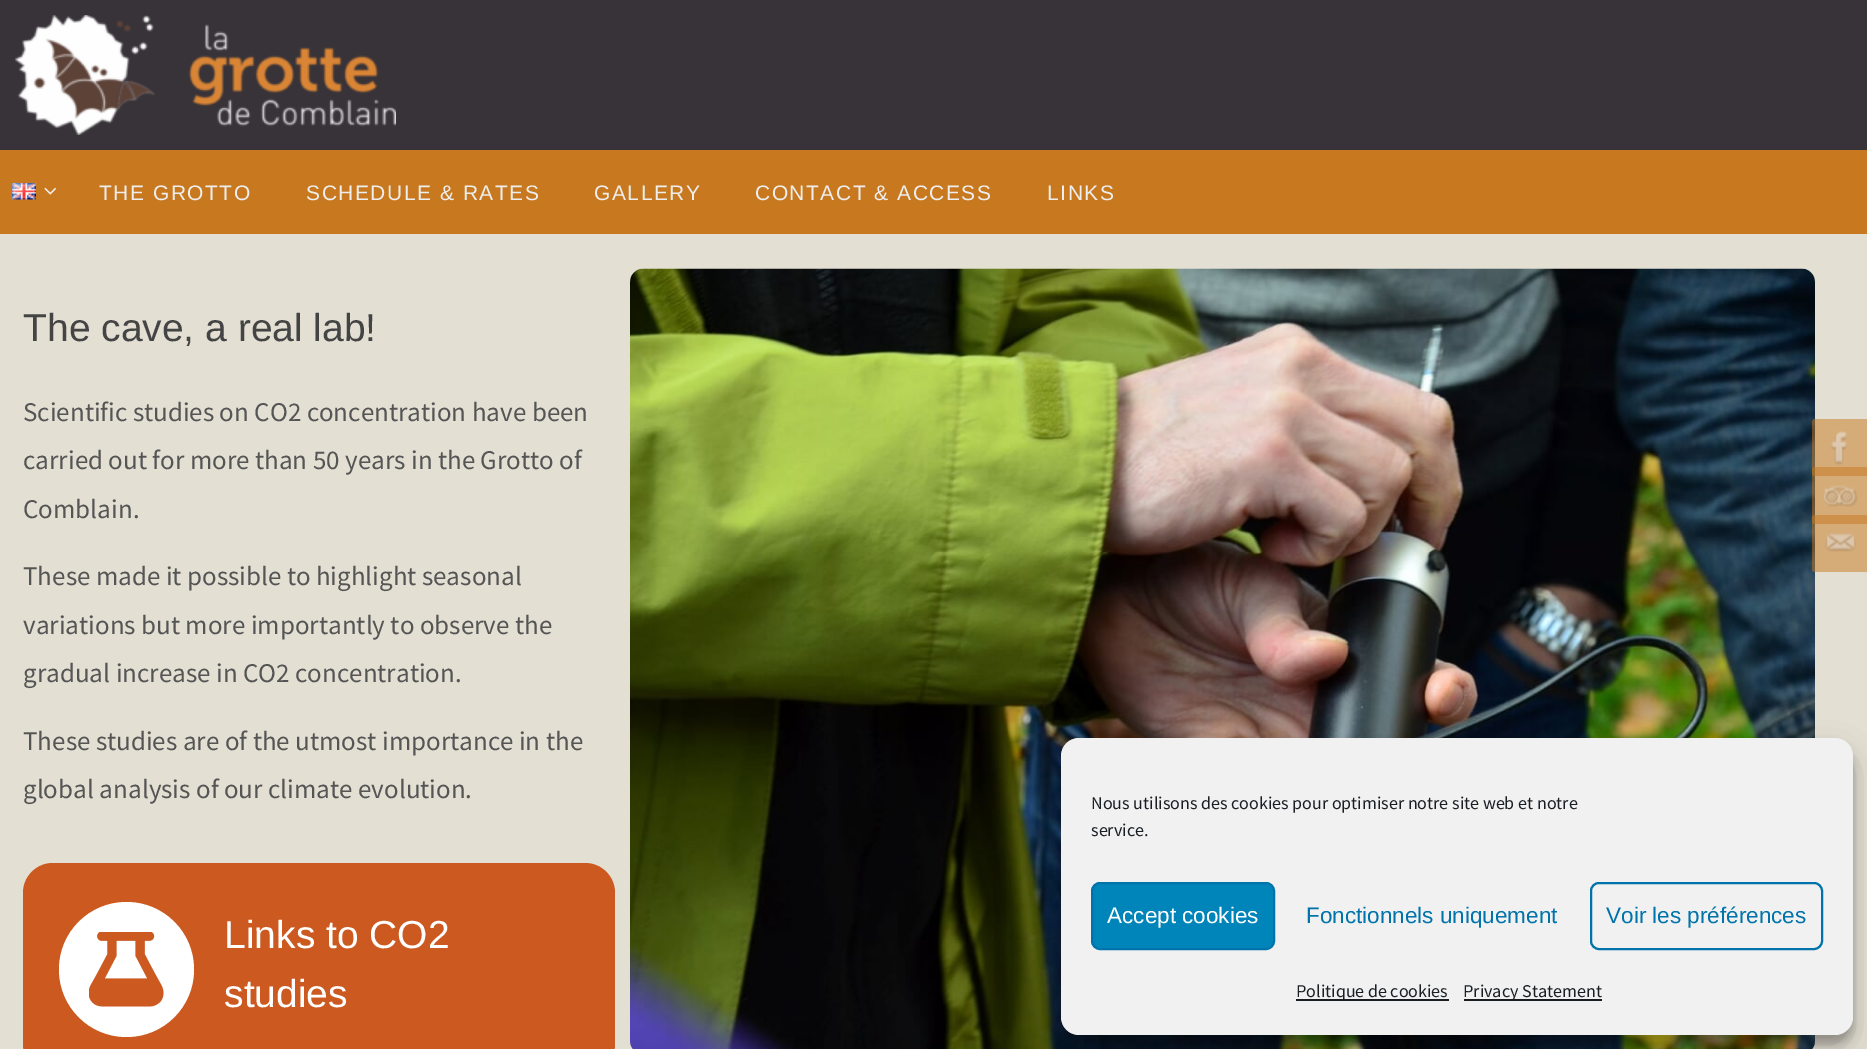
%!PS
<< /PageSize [1867 1049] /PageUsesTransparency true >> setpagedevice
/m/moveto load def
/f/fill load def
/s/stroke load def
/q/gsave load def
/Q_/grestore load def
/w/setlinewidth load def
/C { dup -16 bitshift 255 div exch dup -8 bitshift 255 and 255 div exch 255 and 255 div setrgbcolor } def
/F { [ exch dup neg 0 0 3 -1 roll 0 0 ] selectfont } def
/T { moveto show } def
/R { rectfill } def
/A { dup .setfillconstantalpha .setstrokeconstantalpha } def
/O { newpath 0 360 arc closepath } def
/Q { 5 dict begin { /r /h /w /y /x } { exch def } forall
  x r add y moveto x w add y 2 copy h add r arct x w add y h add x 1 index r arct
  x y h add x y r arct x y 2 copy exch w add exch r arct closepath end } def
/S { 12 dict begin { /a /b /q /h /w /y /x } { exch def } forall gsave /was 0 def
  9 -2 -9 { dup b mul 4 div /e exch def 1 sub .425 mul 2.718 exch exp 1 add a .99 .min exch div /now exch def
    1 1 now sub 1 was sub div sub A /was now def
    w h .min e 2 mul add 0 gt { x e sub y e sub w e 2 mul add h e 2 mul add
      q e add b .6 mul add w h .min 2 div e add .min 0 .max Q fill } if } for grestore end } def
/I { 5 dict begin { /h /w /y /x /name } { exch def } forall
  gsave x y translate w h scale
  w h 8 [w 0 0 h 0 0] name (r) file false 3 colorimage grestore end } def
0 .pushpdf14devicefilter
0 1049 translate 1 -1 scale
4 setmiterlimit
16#E3DFD3 C
0 0 1867 1049 R
16#383339 C
0 0 1867 150 R
(1.rgb) 15 15 381 120 I
16#C8781E C
0 150 1867 84 R
(2.rgb) 12 183 24 17 I
(3.rgb) 44 187 13 8 I
/LiberationSans-Regular 21 F
16#EEEEEE C
99 200 m 1.5 0 (THE GROTTO) ashow
306 200 m 1.5 0 (SCHEDULE & RATES) ashow
594 200 m 1.5 0 (GALLERY) ashow
755 200 m 1.5 0 (CONTACT & ACCESS) ashow
1047 200 m 1.5 0 (LINKS) ashow
/LiberationSans-Regular 39 F
16#444444 C
(The cave, a real lab!) 23 341 T
/SourceSansPro-Regular 27 F
16#555555 C
(Scientific studies on CO2 concentration have been) 23 421 T
(carried out for more than 50 years in the Grotto of) 23 469 T
(Comblain.) 23 518 T
(These made it possible to highlight seasonal) 23 585 T
(variations but more importantly to observe the) 23 634 T
(gradual increase in CO2 concentration.) 23 682 T
(These studies are of the utmost importance in the) 23 750 T
(global analysis of our climate evolution.) 23 798 T
16#CB5920 C
23 863 592 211 30 Q f
16#FFFFFF C
126.5 969.5 67.5 O f
(4.rgb) 89 932 75 75 I
/LiberationSans-Regular 39 F
(Links to CO2) 224 948 T
(studies) 224 1007 T
(5.rgb) 630 268 1185 781 I
0.5 A
16#C8781E C
1812 419 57 57 3 Q f
1 A
(6.rgb) 1831 431 16 34 I
0.5 A
1812 467 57 57 3 Q f
1 A
(7.rgb) 1823 485 35 22 I
0.5 A
1812 515 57 57 3 Q f
1 A
(8.rgb) 1825 533 31 19 I
16#000000 C
1061 747 792 297 18 4.5 .23 S
1061 753 792 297 18 15 .19 S
16#F1F1F1 C
1061 738 792 297 18 Q f
/SourceSansPro-Regular 18 F
16#191E23 C
(Nous utilisons des cookies pour optimiser notre site web et notre) 1091 809 T
(service.) 1091 836 T
16#0085BA C
1092 883 182 66 8 Q q f Q_
16#0073AA C
2 w
s
/LiberationSans-Regular 22.5 F
16#FFFFFF C
(Accept cookies) 1107 923 T
16#0073AA C
(Fonctionnels uniquement) 1306 923 T
1591 883 231 66 8 Q s
(Voir les préférences) 1606 923 T
16#191E23 C
1296 999 153 2 R
/SourceSansPro-Regular 18 F
(Politique de cookies) 1296 997 T
1464 999 138 2 R
(Privacy Statement) 1463 997 T
.poppdf14devicefilter showpage
